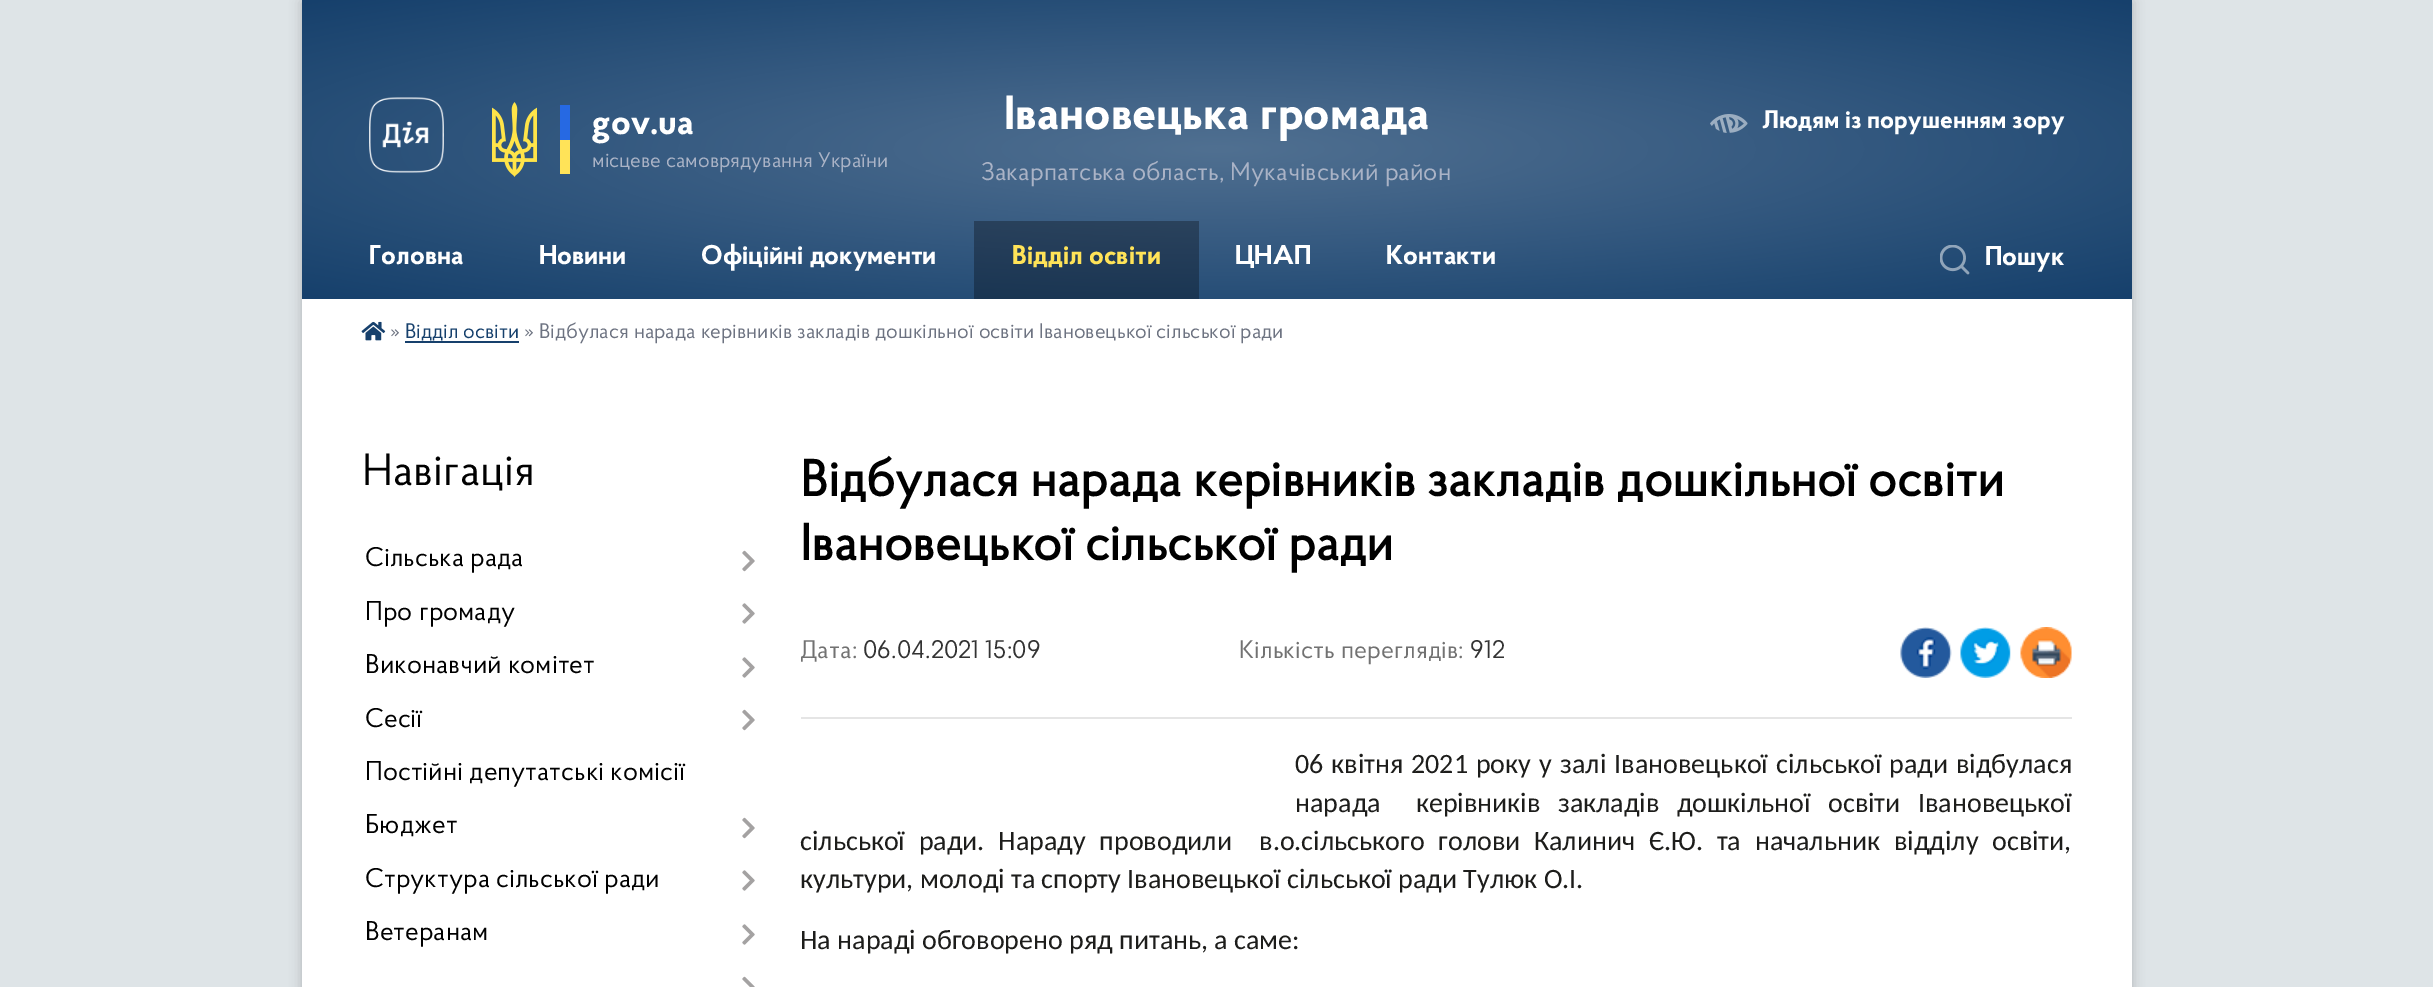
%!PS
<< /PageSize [2433 987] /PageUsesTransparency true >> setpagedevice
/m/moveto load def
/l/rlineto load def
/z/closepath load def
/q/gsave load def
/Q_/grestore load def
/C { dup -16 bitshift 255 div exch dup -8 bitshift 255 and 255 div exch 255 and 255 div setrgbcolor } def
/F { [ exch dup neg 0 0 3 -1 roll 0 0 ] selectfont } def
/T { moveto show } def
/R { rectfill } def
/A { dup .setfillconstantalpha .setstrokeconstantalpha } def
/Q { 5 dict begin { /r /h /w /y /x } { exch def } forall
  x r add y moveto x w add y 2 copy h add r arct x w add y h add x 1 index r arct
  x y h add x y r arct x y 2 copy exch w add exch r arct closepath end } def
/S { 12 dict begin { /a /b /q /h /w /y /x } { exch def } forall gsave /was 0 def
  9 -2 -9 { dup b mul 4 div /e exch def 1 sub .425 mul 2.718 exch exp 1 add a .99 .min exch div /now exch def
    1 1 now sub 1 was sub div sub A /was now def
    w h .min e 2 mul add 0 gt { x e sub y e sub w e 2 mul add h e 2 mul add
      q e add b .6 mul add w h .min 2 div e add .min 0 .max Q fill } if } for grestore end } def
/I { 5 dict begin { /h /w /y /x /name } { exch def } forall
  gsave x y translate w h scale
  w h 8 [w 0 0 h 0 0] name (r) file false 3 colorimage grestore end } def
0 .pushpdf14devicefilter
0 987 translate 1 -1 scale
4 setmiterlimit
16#DEE4E7 C
0 0 2433 987 R
16#000000 C
302 2 1830 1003 0 6 .2 S
16#FFFFFF C
302 299 1830 688 R
q 302 0 m 1830 0 l 0 299 l -1830 0 l z clip newpath 1217 149 translate 1294 211 scale
<< /ShadingType 3 /ColorSpace /DeviceRGB /Coords [0 0 0 0 0 1] /Extend [true true] /Function << /FunctionType 2 /Domain [0 1] /C0 [.314 .439 .569] /C1 [.086 .251 .424] /N 1 >> >> shfill Q_
q 974 221 m 225 0 l 0 78 l -225 0 l z clip newpath 1217 149 translate 1294 211 scale
<< /ShadingType 3 /ColorSpace /DeviceRGB /Coords [0 0 0 0 0 1] /Extend [true true] /Function << /FunctionType 2 /Domain [0 1] /C0 [.22 .306 .4] /C1 [.059 .176 .298] /N 1 >> >> shfill Q_
(1.rgb) 369 97 75 76 I
(2.rgb) 492 102 45 75 I
16#2669E3 C
560 105 10 35 R
16#FFE358 C
560 140 10 34 R
/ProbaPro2-Bold 36 F
16#FFFFFF C
(gov.ua) 592 134 T
/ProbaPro-Regular 21 F
16#AAB3C6 C
(місцеве самоврядування України) 592 167 T
/ProbaPro2-Bold 48 F
16#FFFFFF C
(Івановецька громада) 1004 129 T
/ProbaPro-Regular 25.5 F
16#AAB3C6 C
(Закарпатська область, Мукачівський район) 981 180 T
(3.rgb) 1710 114 38 19 I
/ProbaPro2-Bold 25.5 F
16#FFFFFF C
(Людям із порушенням зору) 1762 128 T
/ProbaPro2-Bold 27 F
(Головна) 369 264 T
(Новини) 539 264 T
(Офіційні документи) 701 264 T
16#FFE358 C
(Відділ освіти) 1012 264 T
16#FFFFFF C
(ЦНАП) 1235 264 T
(Контакти) 1386 264 T
(4.rgb) 1940 245 30 30 I
(Пошук) 1985 265 T
(5.rgb) 361 321 25 20 I
/ProbaPro-Regular 21 F
16#6D7381 C
(») 390 338 T
16#16406C C
(Відділ освіти) 405 338 T
405 341 114 2 R
16#6D7381 C
(» Відбулася нарада керівників закладів дошкільної освіти Івановецької сільської ради) 524 338 T
/ProbaPro-Regular 45 F
16#000000 C
(Навігація) 362 485 T
/ProbaPro-Regular 27 F
(Сільська рада) 365 566 T
(6.rgb) 742 550 13 22 I
(Про громаду) 365 620 T
(7.rgb) 742 603 13 21 I
(Виконавчий комітет) 365 673 T
(7.rgb) 742 657 13 21 I
(Сесії) 365 727 T
(6.rgb) 742 709 13 22 I
(Постійні депутатські комісії) 365 780 T
(Бюджет) 365 833 T
(6.rgb) 742 817 13 22 I
(Структура сільської ради) 365 887 T
(7.rgb) 742 870 13 21 I
(Ветеранам) 365 940 T
(7.rgb) 742 924 13 21 I
(8.rgb) 742 976 13 11 I
/ProbaPro-Bold 51 F
(Відбулася нарада керівників закладів дошкільної освіти) 800 496 T
(Івановецької сільської ради) 800 560 T
/ProbaPro-Regular 25.5 F
16#727272 C
(Дата:) 800 658 T
16#333333 C
(06.04.2021 15:09) 863 658 T
16#727272 C
(Кількість переглядів:) 1239 658 T
16#333333 C
(912) 1470 658 T
(9.rgb) 1900 627 52 51 I
(10.rgb) 1960 627 51 51 I
(11.rgb) 2020 627 52 51 I
16#E5E5E5 C
801 717 1271 2 R
/Carlito-Regular 28 F
16#1D1D1B C
1295 773 m 1.5 0 32 (06 квітня 2021 року у) widthshow
1560 773 m 2 0 32 (залі Івановецької сільської ради) widthshow
(відбулася) 1956 773 T
1295 812 m 11.25 0 32 (нарада  керівників закладів дошкільної освіти Івановецької) widthshow
800 850 m 7.4 0 32 (сільської ради. Нараду проводили  в.о.сільського голови Калинич Є.Ю. та начальник відділу освіти,) widthshow
(культури, молоді та спорту Івановецької сільської ради Тулюк О.І.) 800 888 T
(На нараді обговорено ряд питань, а саме:) 800 949 T
.poppdf14devicefilter showpage
